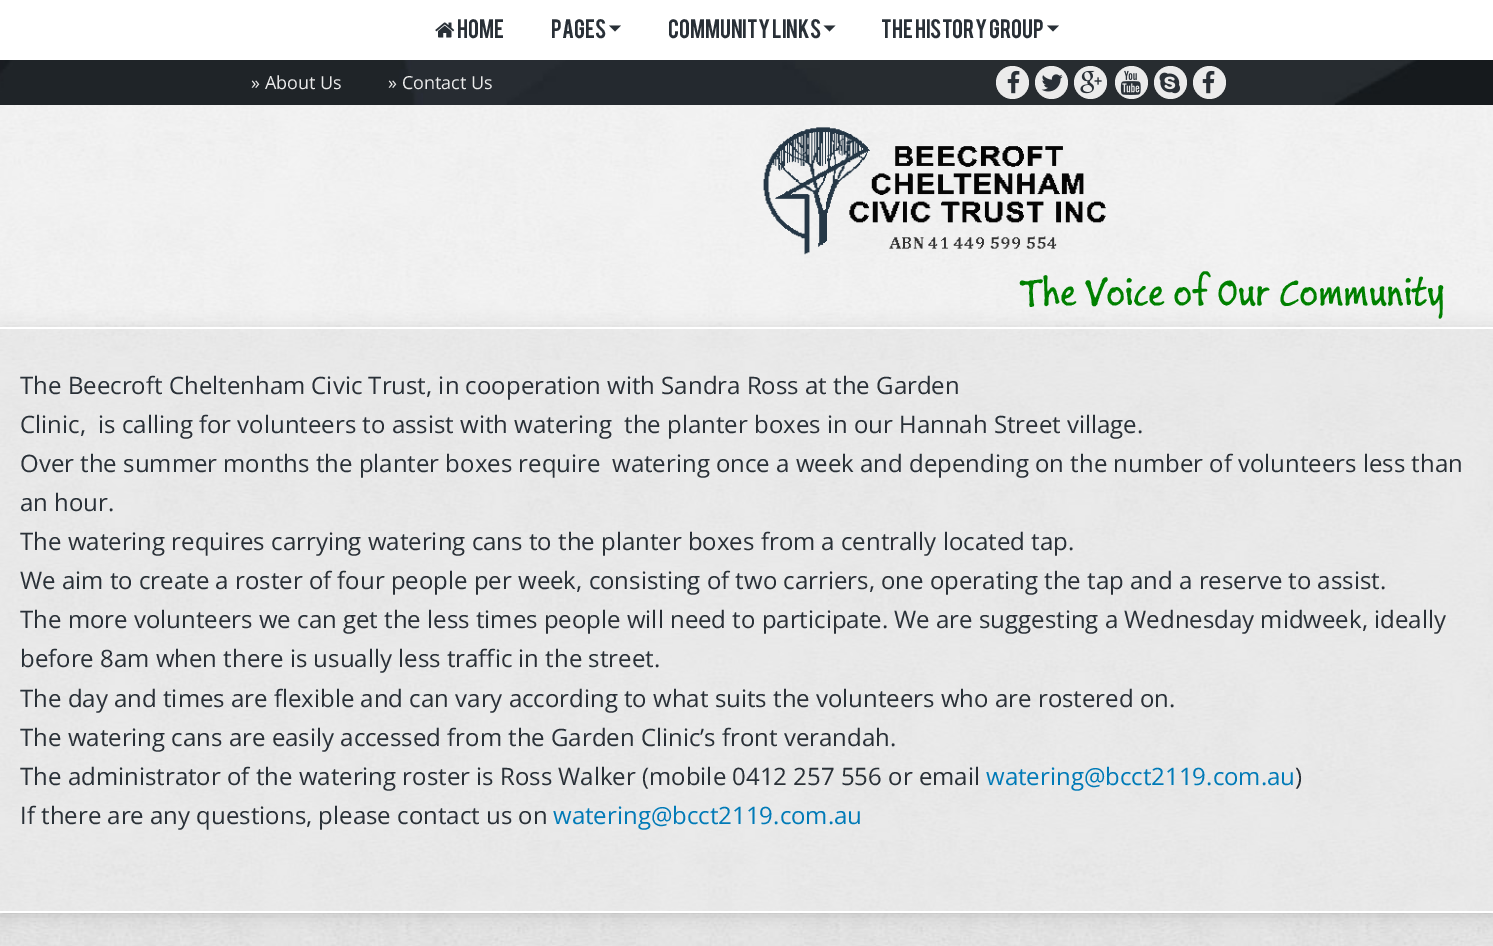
%!PS
<< /PageSize [1493 946] /PageUsesTransparency true >> setpagedevice
/m/moveto load def
/l/rlineto load def
/z/closepath load def
/f/fill load def
/q/gsave load def
/Q_/grestore load def
/C { dup -16 bitshift 255 div exch dup -8 bitshift 255 and 255 div exch 255 and 255 div setrgbcolor } def
/F { [ exch dup neg 0 0 3 -1 roll 0 0 ] selectfont } def
/T { moveto show } def
/R { rectfill } def
/A { dup .setfillconstantalpha .setstrokeconstantalpha } def
/O { newpath 0 360 arc closepath } def
/Q { 5 dict begin { /r /h /w /y /x } { exch def } forall
  x r add y moveto x w add y 2 copy h add r arct x w add y h add x 1 index r arct
  x y h add x y r arct x y 2 copy exch w add exch r arct closepath end } def
/S { 12 dict begin { /a /b /q /h /w /y /x } { exch def } forall gsave /was 0 def
  9 -2 -9 { dup b mul 4 div /e exch def 1 sub .425 mul 2.718 exch exp 1 add a .99 .min exch div /now exch def
    1 1 now sub 1 was sub div sub A /was now def
    w h .min e 2 mul add 0 gt { x e sub y e sub w e 2 mul add h e 2 mul add
      q e add b .6 mul add w h .min 2 div e add .min 0 .max Q fill } if } for grestore end } def
/I { 5 dict begin { /h /w /y /x /name } { exch def } forall
  gsave x y translate w h scale
  w h 8 [w 0 0 h 0 0] name (r) file false 3 colorimage grestore end } def
0 .pushpdf14devicefilter
0 946 translate 1 -1 scale
4 setmiterlimit
16#FFFFFF C
0 0 1493 946 R
(1.rgb) 0 105 1493 841 I
(2.rgb) 0 60 1493 45 I
/OpenSans-Regular 18 F
16#EBEBEB C
(» About Us) 251 89 T
(» Contact Us) 388 89 T
1012.5 82.5 16.5 O f
(3.rgb) 1007 70 13 24 I
1051.5 82.5 16.5 O f
(4.rgb) 1041 74 22 18 I
1090.5 82.5 16.5 O f
(5.rgb) 1080 70 22 24 I
1131.5 82.5 16.5 O f
(6.rgb) 1120 70 21 25 I
1170.5 82.5 16.5 O f
(7.rgb) 1159 72 22 22 I
1209.5 82.5 16.5 O f
(3.rgb) 1202 70 13 24 I
q
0 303 m 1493 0 l 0 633 l -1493 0 l z 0 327 m 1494 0 l 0 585 l -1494 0 l z eoclip newpath
16#000000 C
0 327 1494 585 0 7.5 .2 S
Q_
0.5 A
16#FFFFFF C
0 105 1493 222 R
1 A
(8.rgb) 435 22 20 16 I
/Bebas-Regular 21 F
16#293037 C
(Home) 457 38 T
(Pages) 551 38 T
609 25.5 m 12 0 l -6 6 l z f
(Community Links) 668 38 T
823.5 25.5 m 12 0 l -6 6 l z f
(The History Group) 881 38 T
1047 25.5 m 12 0 l -6 6 l z f
(9.rgb) 763 127 343 128 I
/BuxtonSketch-Regular 42 F
16#008000 C
(The Voice of Our Community) 1020 305 T
0.5 A
16#EEEEEE C
0 329 1493 582 R
1 A
16#FFFFFF C
0 327 1493 2 R
0 911 1493 2 R
/OpenSans-Regular 24 F
16#293037 C
(The Beecroft Cheltenham Civic Trust, in cooperation with Sandra Ross at the Garden) 20 394 T
(Clinic,  is calling for volunteers to assist with watering) 20 433 T
(the planter boxes in our Hannah Street village.) 624 433 T
(Over the summer months the planter boxes require) 20 472 T
(watering once a week and depending on the number of volunteers less than) 612 472 T
(an hour.) 20 511 T
(The watering requires carrying watering cans to the planter boxes from a centrally located tap.) 20 550 T
(We aim to create a roster of four people per week, consisting of two carriers, one operating the tap and a reserve to assist.) 20 589 T
(The more volunteers we can get the less times people will need to participate. We are suggesting a Wednesday midweek, ideally) 20 628 T
(before 8am when there is usually less traffic in the street.) 20 667 T
(The day and times are flexible and can vary according to what suits the volunteers who are rostered on.) 20 707 T
(The watering cans are easily accessed from the Garden Clinic’s front verandah.) 20 746 T
(The administrator of the watering roster is Ross Walker \(mobile 0412 257 556 or email) 20 785 T
16#007AB7 C
(watering@bcct2119.com.au) 986 785 T
16#293037 C
(\)) 1295 785 T
(If there are any questions, please contact us on) 20 824 T
16#007AB7 C
(watering@bcct2119.com.au) 553 824 T
.poppdf14devicefilter showpage
